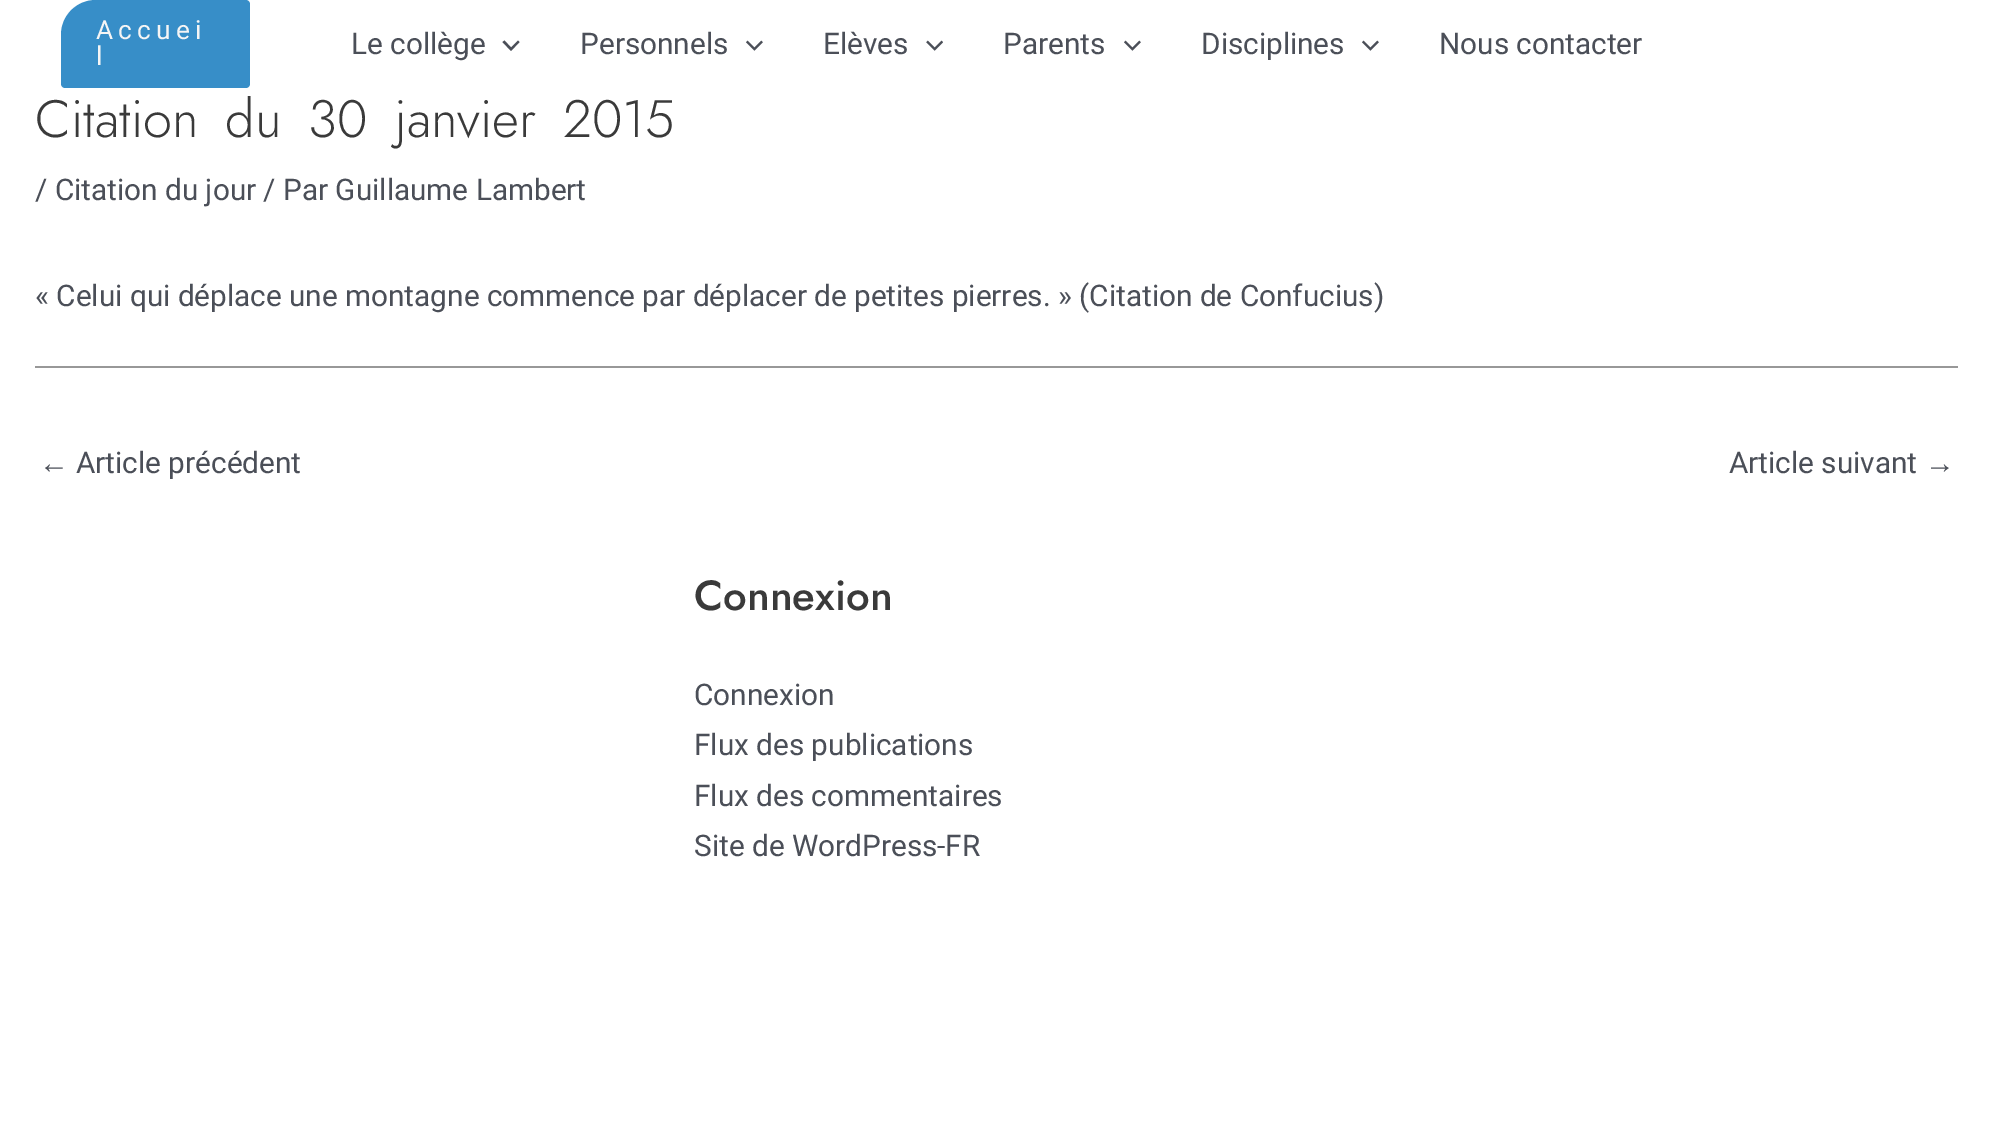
%!PS
<< /PageSize [1992 1141] >> setpagedevice
/m/moveto load def
/l/rlineto load def
/c/rcurveto load def
/z/closepath load def
/f/fill load def
/C { dup -16 bitshift 255 div exch dup -8 bitshift 255 and 255 div exch 255 and 255 div setrgbcolor } def
/F { [ exch dup neg 0 0 3 -1 roll 0 0 ] selectfont } def
/T { moveto show } def
/R { rectfill } def
/I { 5 dict begin { /h /w /y /x /name } { exch def } forall
  gsave x y translate w h scale
  w h 8 [w 0 0 h 0 0] name (r) file false 3 colorimage grestore end } def
0 1141 translate 1 -1 scale
4 setmiterlimit
16#FFFFFF C
0 0 1992 1141 R
16#378EC8 C
96 0 m 150 0 l 2 0 4 2 4 4 c 0 80 l 0 2 -2 4 -4 4 c -181 0 l -2 0 -4 -2 -4 -4 c 0 -49 l 0 -19.5 15.5 -35 35 -35 c z f
/Roboto-Regular 26.25 F
16#F5F5F5 C
96 39 m 5.25 0 (Accuei) ashow
96 65 m 5.25 0 (l) ashow
/Roboto-Regular 29.75 F
16#4B4F58 C
(Le collège) 351 54 T
502.5 42 m 8.5 9 l 8.5 -9 l -1.5 -1.5 l -7 7 l -6.5 -7 l z f
(Personnels) 580 54 T
(1.rgb) 746 40 17 11 I
(Elèves) 823 54 T
(2.rgb) 926 40 17 11 I
(Parents) 1003 54 T
(1.rgb) 1124 40 17 11 I
(Disciplines) 1201 54 T
(1.rgb) 1362 40 17 11 I
(Nous contacter) 1439 54 T
/Jost-Light 52.5 F
16#3A3A3A C
35 137 m 11.5 0 32 (Citation du 30 janvier 2015) widthshow
/Roboto-Regular 29.75 F
16#4B4F58 C
(/ Citation du jour / Par Guillaume Lambert) 35 200 T
(« Celui qui déplace une montagne commence par déplacer de petites pierres. » \(Citation de Confucius\)) 35 306 T
16#989898 C
35 366 1923 2 R
/LiberationSans-Regular 29.75 F
16#4B4F58 C
(←) 39 473 T
/Roboto-Regular 29.75 F
(Article précédent) 76 473 T
(Article suivant) 1729 473 T
/LiberationSans-Regular 29.75 F
(→) 1925 473 T
/Jost-Medium 42 F
16#3A3A3A C
(Connexion) 694 610 T
/Roboto-Regular 29.75 F
16#4B4F58 C
(Connexion) 694 705 T
(Flux des publications) 694 755 T
(Flux des commentaires) 694 806 T
(Site de WordPress-FR) 694 856 T
showpage
